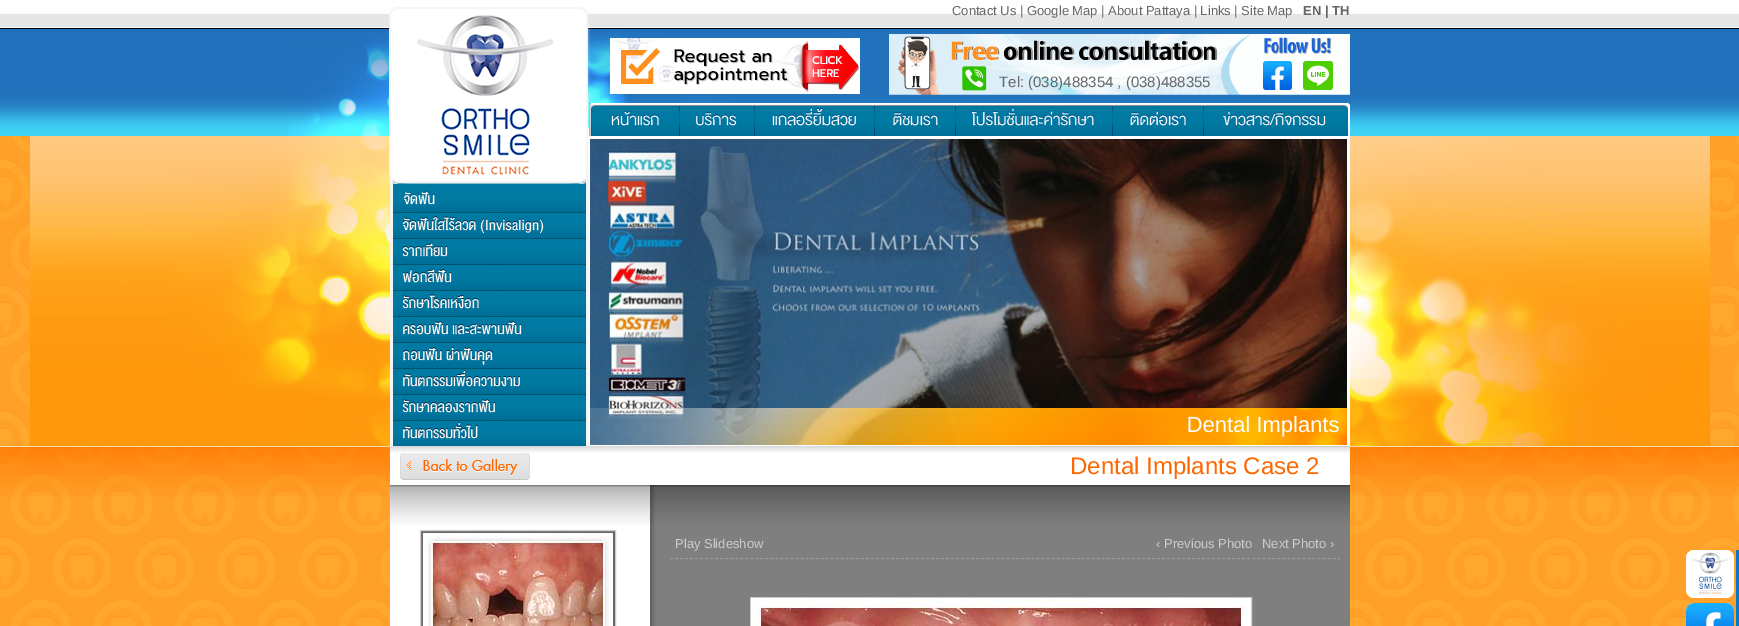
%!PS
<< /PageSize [1739 626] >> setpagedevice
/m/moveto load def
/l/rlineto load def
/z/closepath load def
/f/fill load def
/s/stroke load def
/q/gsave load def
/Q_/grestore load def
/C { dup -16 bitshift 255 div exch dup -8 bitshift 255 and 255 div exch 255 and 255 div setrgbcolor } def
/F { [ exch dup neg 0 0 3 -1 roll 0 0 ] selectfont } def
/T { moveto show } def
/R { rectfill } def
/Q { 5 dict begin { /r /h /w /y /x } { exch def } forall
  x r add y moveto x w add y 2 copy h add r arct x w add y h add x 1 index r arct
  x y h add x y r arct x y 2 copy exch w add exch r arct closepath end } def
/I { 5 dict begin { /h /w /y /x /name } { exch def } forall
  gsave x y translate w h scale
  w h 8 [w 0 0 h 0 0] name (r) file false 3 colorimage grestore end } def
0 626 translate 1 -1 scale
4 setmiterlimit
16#FFFFFF C
0 0 1739 626 R
(1.rgb) 0 136 1739 490 I
(2.rgb) 0 0 1739 136 I
(3.rgb) 288 30 446 106 I
(9.rgb) 589 103 91 33 I
(16.rgb) 30 136 1680 310 I
(17.rgb) 390 174 199 38 I
(27.rgb) 590 139 757 306 I
(4.rgb) 389 7 202 177 I
/LiberationSans-Regular 13 F
16#666666 C
(Contact Us | Google Map | About Pattaya | Links | Site Map) 952 15 T
/LiberationSans-Bold 13 F
(EN | TH) 1303 15 T
(5.rgb) 610 38 250 56 I
(6.rgb) 889 34 461 61 I
/LiberationSans-Regular 15 F
(Tel: \(038\)488354 , \(038\)488355) 999 87 T
(7.rgb) 1263 61 29 29 I
(8.rgb) 1303 61 30 29 I
(10.rgb) 680 103 75 33 I
(11.rgb) 755 103 120 33 I
(12.rgb) 875 103 81 33 I
(13.rgb) 956 103 157 33 I
(14.rgb) 1113 103 91 33 I
(15.rgb) 1204 103 146 33 I
(18.rgb) 390 212 199 26 I
(19.rgb) 390 238 199 26 I
(20.rgb) 390 264 199 26 I
(21.rgb) 390 290 199 26 I
(22.rgb) 390 316 199 26 I
(23.rgb) 390 342 199 26 I
(24.rgb) 390 368 199 26 I
(25.rgb) 390 394 199 26 I
(26.rgb) 390 420 199 26 I
(29.rgb) 590 408 757 37 I
/LiberationSans-Regular 22 F
16#FFFFFF C
(Dental Implants) 1187 432 T
(28.rgb) 590 136 760 309 I
(30.rgb) 0 446 1739 51 I
390 453 960 173 R
(31.rgb) 390 446 960 7 I
(32.rgb) 400 452 130 28 I
16#CCCCCC C
1040 446 310 1 R
/LiberationSans-Regular 24 F
16#FF6600 C
(Dental Implants Case 2) 1070 474 T
(33.rgb) 650 485 700 141 I
(34.rgb) 390 485 960 39 I
16#666666 C
420.5 530.5 m 195 0 l 0 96 l -195 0 l z q f Q_
16#CCCCCC C
s
(35.rgb) 423 533 190 93 I
16#999999 C
[3 2.02] 0 setdash
670 558.5 m 670 0 l s
/LiberationSans-Regular 13 F
16#CCCCCC C
(Play Slideshow) 675 548 T
(‹ Previous Photo) 1156 548 T
(Next Photo ›) 1262 548 T
[] 0 setdash
750.5 597.5 501 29 rectstroke
(36.rgb) 751 598 500 28 I
16#0676CA C
1736 550 3 76 R
16#FFFFFF C
1686 550 48 48 8 Q f
(37.rgb) 1686 550 48 48 I
(38.rgb) 1686 603 48 23 I
showpage
